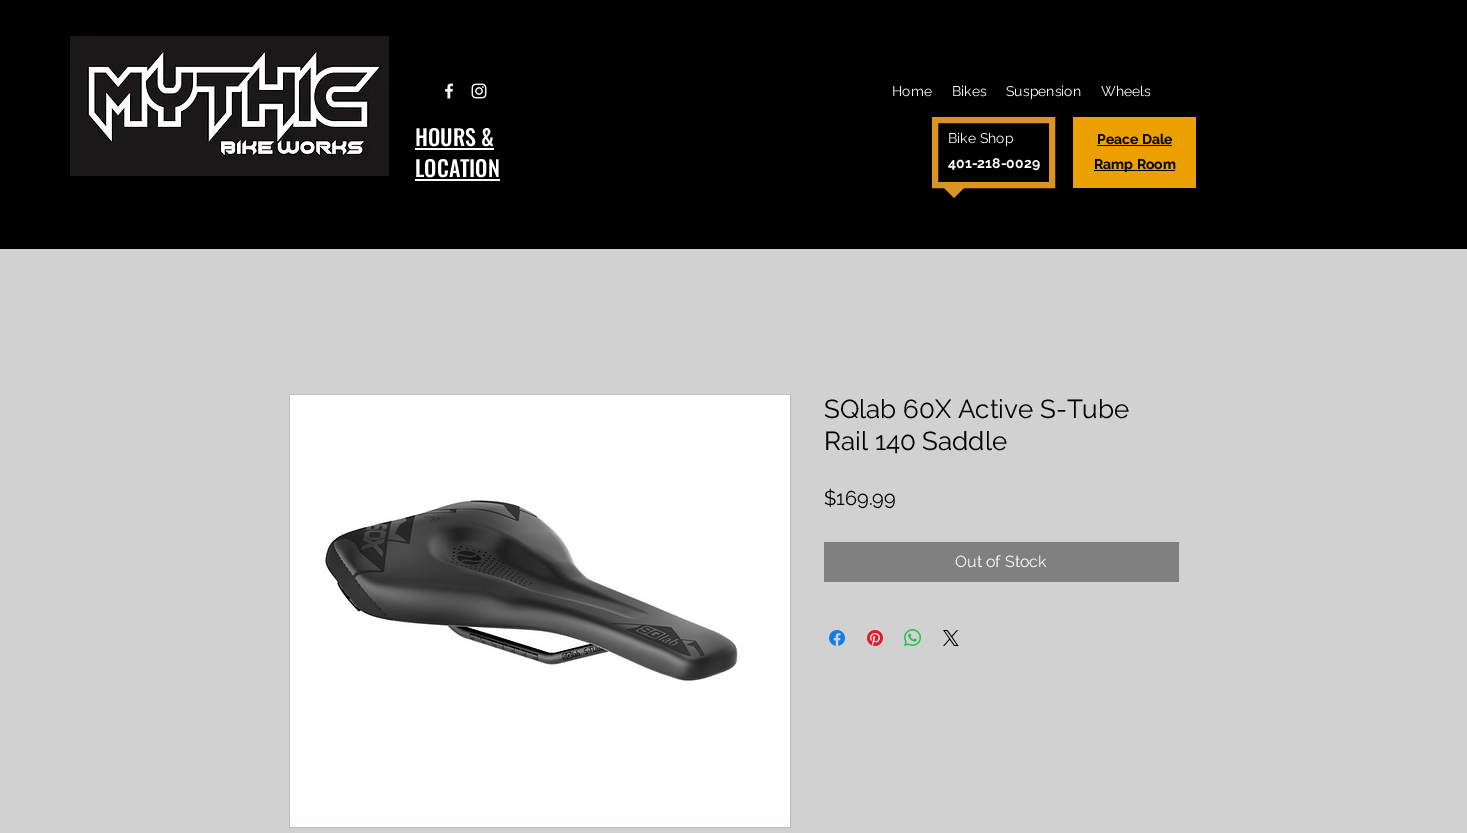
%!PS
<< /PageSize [1467 833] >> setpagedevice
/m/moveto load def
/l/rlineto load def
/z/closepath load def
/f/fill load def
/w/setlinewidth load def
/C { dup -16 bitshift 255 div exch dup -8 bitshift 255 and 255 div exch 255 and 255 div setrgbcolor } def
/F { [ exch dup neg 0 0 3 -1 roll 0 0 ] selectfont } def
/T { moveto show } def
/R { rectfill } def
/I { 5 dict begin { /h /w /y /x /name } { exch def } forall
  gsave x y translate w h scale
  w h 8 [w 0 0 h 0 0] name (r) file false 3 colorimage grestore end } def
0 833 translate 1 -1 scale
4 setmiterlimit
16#000000 C
0 0 1467 833 R
(1.rgb) 70 36 319 140 I
(2.rgb) 445 83 9 16 I
(3.rgb) 471 83 16 16 I
/Oswald-Medium 22 F
16#FFFFFF C
(HOURS &) 415 146 T
415 148 79 2 R
(LOCATION) 415 177 T
415 179 85 2 R
/Raleway-Regular 14 F
(Home) 892 96 T
(Bikes) 952 96 T
(Suspension) 1006 96 T
(Wheels) 1101 96 T
16#DB9421 C
6 w
935 120 117 65 rectstroke
944 188 m 20 0 l -10 10 l z f
16#FFFFFF C
(Bike Shop) 948 143 T
16#EBA000 C
1073 117 123 71 R
/Raleway-Bold 14 F
16#000000 C
(Peace Dale) 1097 144 T
1097 145 75 1 R
1094 170 81 1 R
(Ramp Room) 1094 169 T
16#FFFFFF C
(401-218-0029) 948 168 T
16#D1D1D1 C
0 249 1467 584 R
16#BFBFBF C
1 w
289.5 394.5 501 433 rectstroke
(4.rgb) 290 395 500 432 I
/Raleway-Regular 26 F
16#000000 C
(SQlab 60X Active S-Tube) 824 418 T
(Rail 140 Saddle) 824 450 T
/Raleway-Regular 20 F
($169.99) 824 505 T
16#808080 C
824 542 355 40 R
/Raleway-Regular 16 F
16#FFFFFF C
(Out of Stock) 955 567 T
(5.rgb) 829 630 16 16 I
(6.rgb) 867 630 16 16 I
(7.rgb) 904 629 17 17 I
(8.rgb) 943 630 16 16 I
showpage
